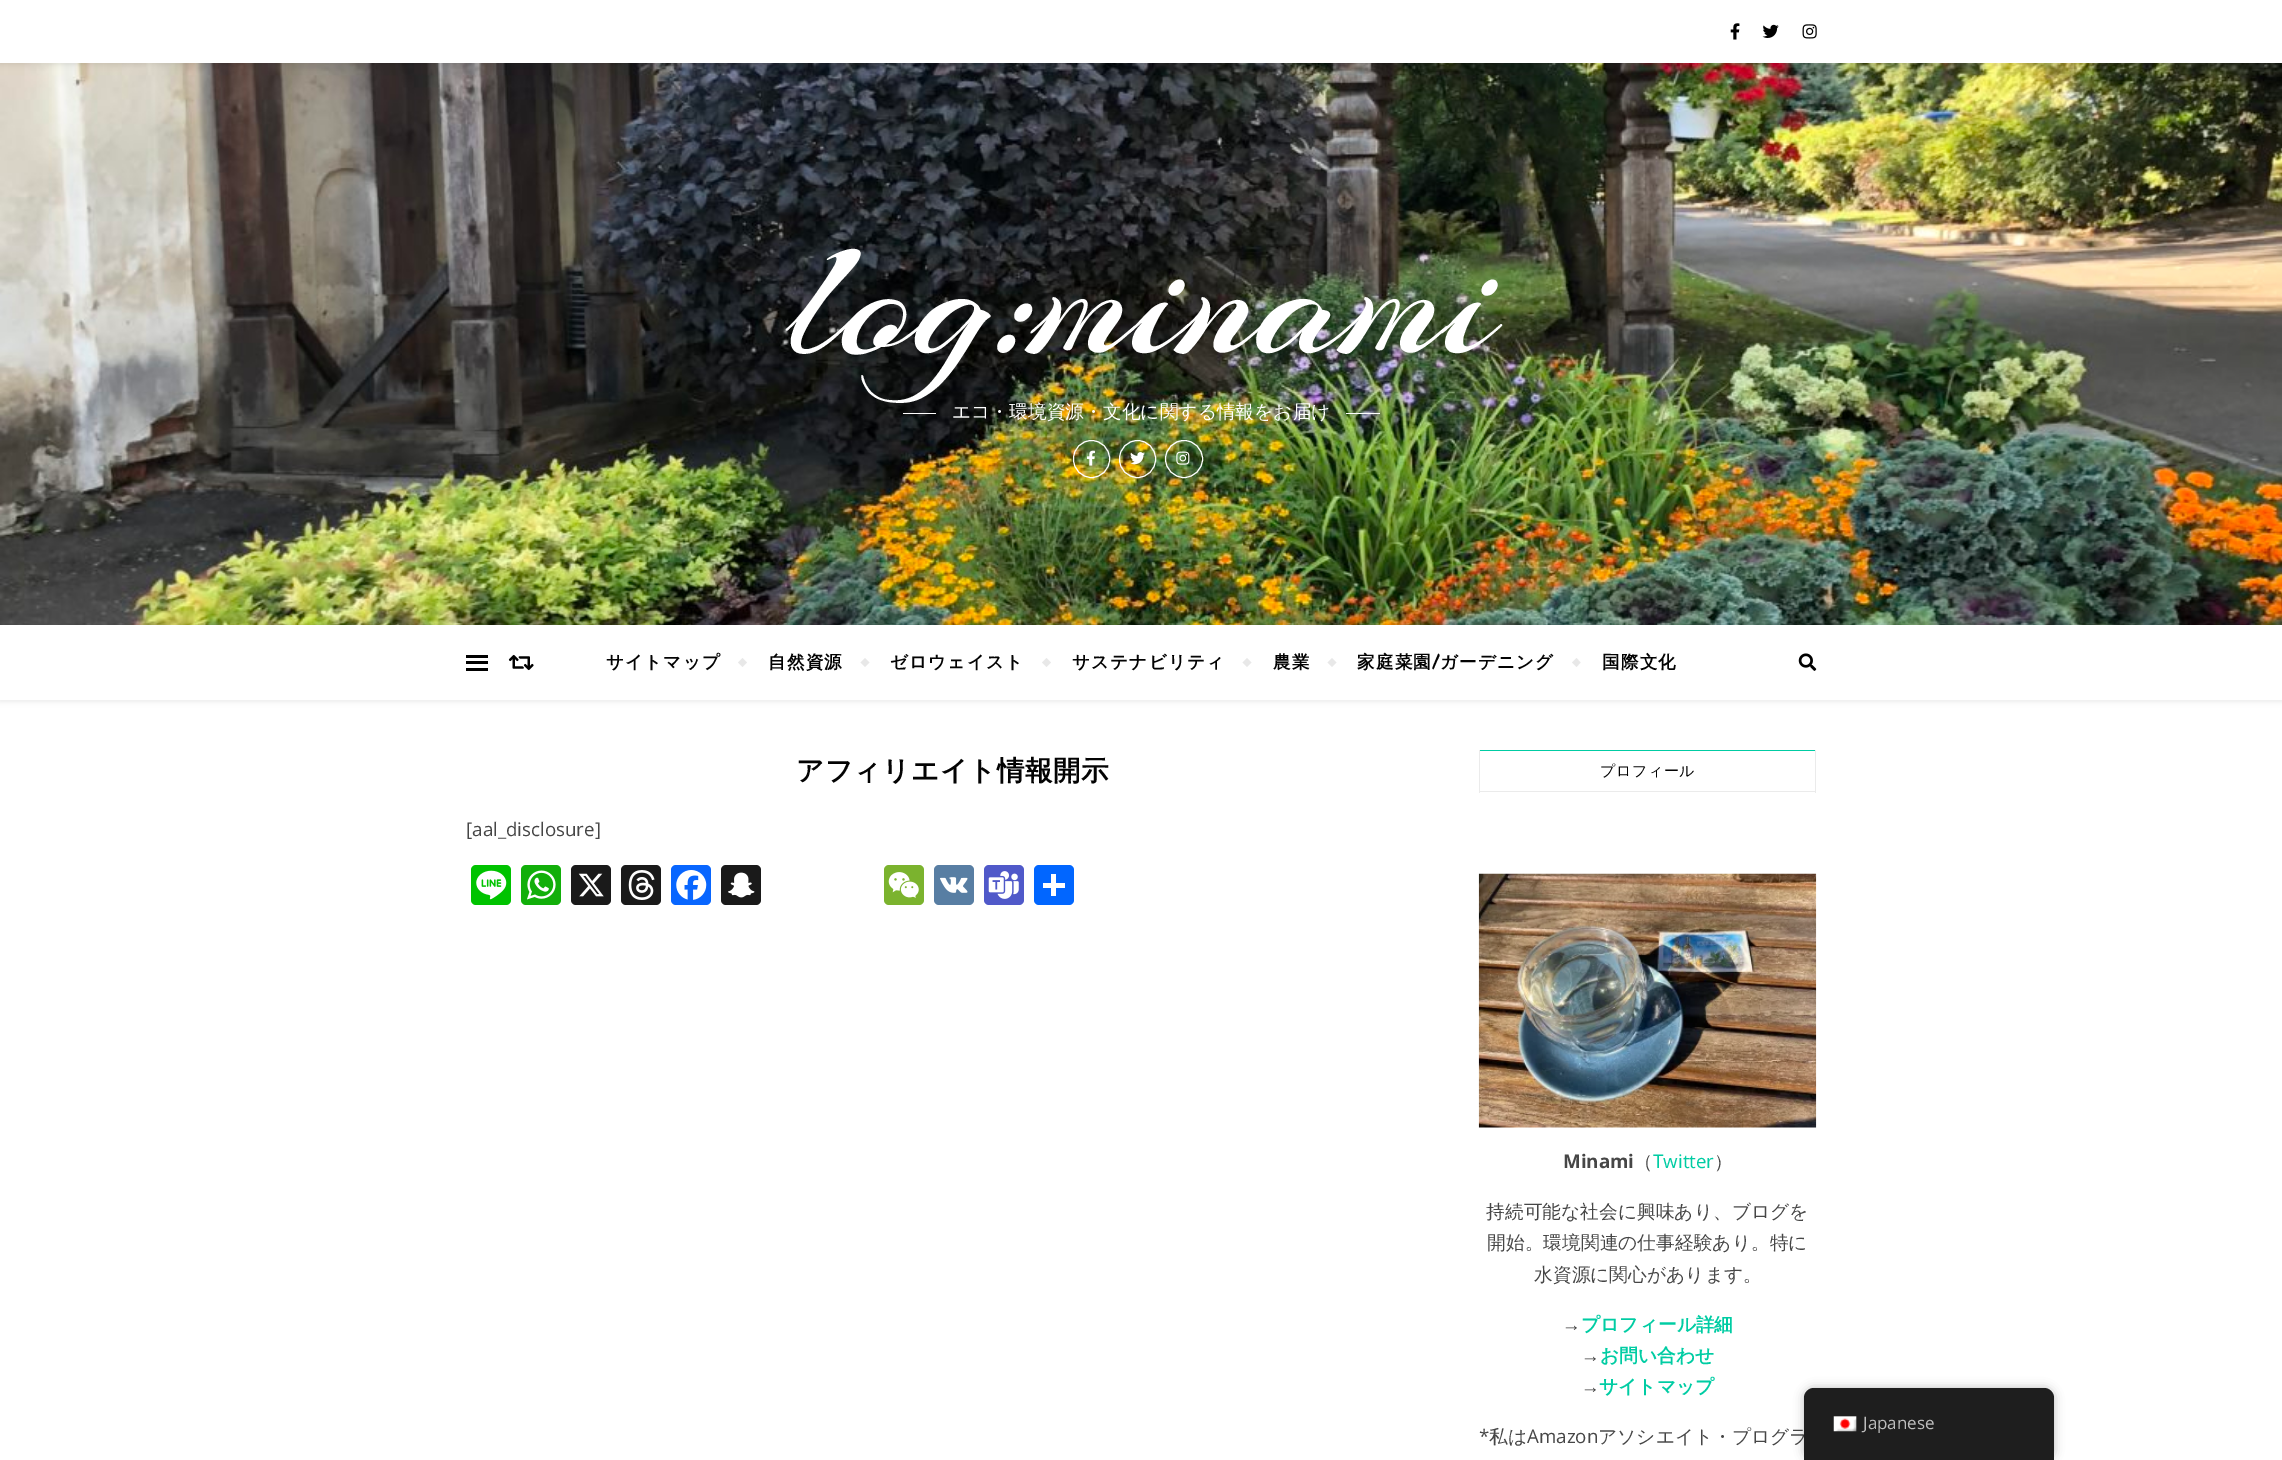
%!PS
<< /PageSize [2282 1460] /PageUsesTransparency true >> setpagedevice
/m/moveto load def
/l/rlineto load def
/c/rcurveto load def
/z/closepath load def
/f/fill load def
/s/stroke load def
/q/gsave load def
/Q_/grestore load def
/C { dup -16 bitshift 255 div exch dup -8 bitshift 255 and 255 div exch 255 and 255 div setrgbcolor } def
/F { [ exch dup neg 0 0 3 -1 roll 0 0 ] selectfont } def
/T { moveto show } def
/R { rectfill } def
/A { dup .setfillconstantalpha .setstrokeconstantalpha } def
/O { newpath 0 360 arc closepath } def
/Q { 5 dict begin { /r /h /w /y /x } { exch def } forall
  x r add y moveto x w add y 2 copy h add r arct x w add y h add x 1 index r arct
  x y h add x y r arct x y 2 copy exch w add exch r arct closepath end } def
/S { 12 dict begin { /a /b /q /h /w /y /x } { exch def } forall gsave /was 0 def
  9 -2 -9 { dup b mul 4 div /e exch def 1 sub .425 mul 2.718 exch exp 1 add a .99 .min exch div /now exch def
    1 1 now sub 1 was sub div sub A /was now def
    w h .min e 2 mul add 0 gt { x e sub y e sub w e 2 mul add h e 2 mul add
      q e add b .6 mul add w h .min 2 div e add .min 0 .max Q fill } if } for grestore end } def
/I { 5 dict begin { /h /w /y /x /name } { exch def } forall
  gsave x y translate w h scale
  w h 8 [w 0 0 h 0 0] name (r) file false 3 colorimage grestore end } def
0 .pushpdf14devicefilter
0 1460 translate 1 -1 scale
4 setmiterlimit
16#FFFFFF C
0 0 2282 1460 R
(4.rgb) 0 63 2282 562 I
16#000000 C
0 1 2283 63 0 3 .1 S
16#FFFFFF C
0 0 2282 63 R
(1.rgb) 1730 23 10 17 I
(2.rgb) 1762 24 17 14 I
(3.rgb) 1802 24 15 15 I
/Arizonia-Regular 187.5 F
(log:minami) 787 353 T
903 413 33 1 R
/WenQuanYiZenHei-Medium 18.75 F
(エコ・環境資源・文化に関する情報をお届け) 952 418 T
1346 413 34 1 R
1073.5 440.5 36 37 18 Q s
(5.rgb) 1086 450 9 16 I
1119.5 440.5 36 37 18 Q s
(6.rgb) 1130 452 15 13 I
1184 459 18.5 O s
(7.rgb) 1176 451 14 14 I
q
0 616 m 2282 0 l 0 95 l -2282 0 l z 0 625 m 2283 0 l 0 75 l -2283 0 l z eoclip newpath
16#000000 C
0 626 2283 75 0 3 .1 S
Q_
16#000000 C
466 655 22 3 R
466 661 22 3 R
466 668 22 3 R
(8.rgb) 508 654 26 17 I
/WenQuanYiZenHei-Bold 17.5 F
16#030303 C
606 668 m 1.25 0 (サイトマップ) ashow
16#E8E8E8 C
738 662.5 m 4.5 -4.5 l 4.5 4.5 l -4.5 4.5 l z f
16#030303 C
768 668 m 1.25 0 (自然資源) ashow
16#E8E8E8 C
860.5 662.5 m 4.5 -4.5 l 4.5 4.5 l -4.5 4.5 l z f
16#030303 C
890 668 m 1.25 0 (ゼロウェイスト) ashow
16#E8E8E8 C
1042 662.5 m 4.5 -4.5 l 4.5 4.5 l -4.5 4.5 l z f
16#030303 C
1072 668 m 1.25 0 (サステナビリティ) ashow
16#E8E8E8 C
1242.5 662.5 m 4.5 -4.5 l 4.5 4.5 l -4.5 4.5 l z f
16#030303 C
1273 668 m 1.25 0 (農業) ashow
16#E8E8E8 C
1327.5 662.5 m 4.5 -4.5 l 4.5 4.5 l -4.5 4.5 l z f
16#030303 C
1357 668 m 1.25 0 (家庭菜園) ashow
/Kalam-Bold 17.5 F
1432 668 m 1.25 0 (/) ashow
/WenQuanYiZenHei-Bold 17.5 F
1440 668 m 1.25 0 (ガーデニング) ashow
16#E8E8E8 C
1572 662.5 m 4.5 -4.5 l 4 4.5 l -4 4.5 l z f
16#030303 C
1602 668 m 1.25 0 (国際文化) ashow
(9.rgb) 1798 653 19 18 I
/WenQuanYiZenHei-Bold 27.5 F
796 780 m .6 0 (アフィリエイト情報開示) ashow
/OpenSans-Regular 18.75 F
16#464646 C
([aal_disclosure]) 466 836 T
16#00C300 C
471 865 40 40 5 Q f
(10.rgb) 476 870 31 30 I
16#12AF0A C
521 865 40 40 5 Q f
(11.rgb) 527 870 29 30 I
16#1A1A1A C
571 865 40 40 5 Q f
(12.rgb) 578 873 26 24 I
621 865 40 40 5 Q f
(13.rgb) 628 870 27 30 I
16#0866FF C
671 865 40 40 5 Q f
(14.rgb) 676 870 31 30 I
16#1A1A1A C
721 865 40 40 5 Q f
(15.rgb) 728 872 27 26 I
16#7BB32E C
884 865 40 40 5 Q f
(16.rgb) 888 872 31 26 I
16#587EA3 C
934 865 40 40 5 Q f
(17.rgb) 940 877 28 16 I
16#5059C9 C
984 865 40 40 5 Q f
(18.rgb) 988 871 31 28 I
16#0166FF C
1034 865 40 40 5 Q f
16#FFFFFF C
1051 874 5 22 R
1043 883 22 5 R
16#00CCA3 C
1479 750 337 1 R
16#EBEBEB C
1815 750 1 43 R
1479 791 337 1 R
1479 750 1 43 R
/WenQuanYiZenHei-Medium 15 F
16#030303 C
1600 776 m .6 0 (プロフィール) ashow
(19.rgb) 1478 873 339 255 I
/OpenSans-Bold 18.75 F
16#464646 C
(Minami) 1563 1168 T
/WenQuanYiZenHei-Medium 18.75 F
(（) 1634 1168 T
/OpenSans-Regular 18.75 F
16#00CCA3 C
(Twitter) 1653 1168 T
/WenQuanYiZenHei-Medium 18.75 F
16#464646 C
(）) 1714 1168 T
(持続可能な社会に興味あり、ブログを) 1486 1218 T
(開始。環境関連の仕事経験あり。特に) 1487 1249 T
(水資源に関心があります。) 1534 1281 T
/LiberationSerif-Regular 18.75 F
(→) 1562 1331 T
/WenQuanYiZenHei-Bold 18.75 F
16#00CCA3 C
(プロフィール詳細) 1581 1331 T
/LiberationSerif-Regular 18.75 F
16#464646 C
(→) 1581 1362 T
/WenQuanYiZenHei-Bold 18.75 F
16#00CCA3 C
(お問い合わせ) 1600 1362 T
/LiberationSerif-Regular 18.75 F
16#464646 C
(→) 1581 1393 T
/WenQuanYiZenHei-Bold 18.75 F
16#00CCA3 C
(サイトマップ) 1599 1393 T
/OpenSans-Regular 18.75 F
16#464646 C
(*) 1479 1443 T
/WenQuanYiZenHei-Medium 18.75 F
(私は) 1489 1443 T
/OpenSans-Regular 18.75 F
(Amazon) 1527 1443 T
/WenQuanYiZenHei-Medium 18.75 F
(アソシエイト・プログラ) 1598 1443 T
16#000000 C
1804 1388 250 72 10 5 .25 S
16#1E1E1E C
1814 1388 m 230 0 l 5.5 0 10 4.5 10 10 c 0 62 l -250 0 l 0 -62 l 0 -5.5 4.5 -10 10 -10 c z f
(20.rgb) 1833 1416 24 16 I
/OpenSans-Regular 17 F
16#BDBDBD C
(Japanese) 1863 1429 T
.poppdf14devicefilter showpage
